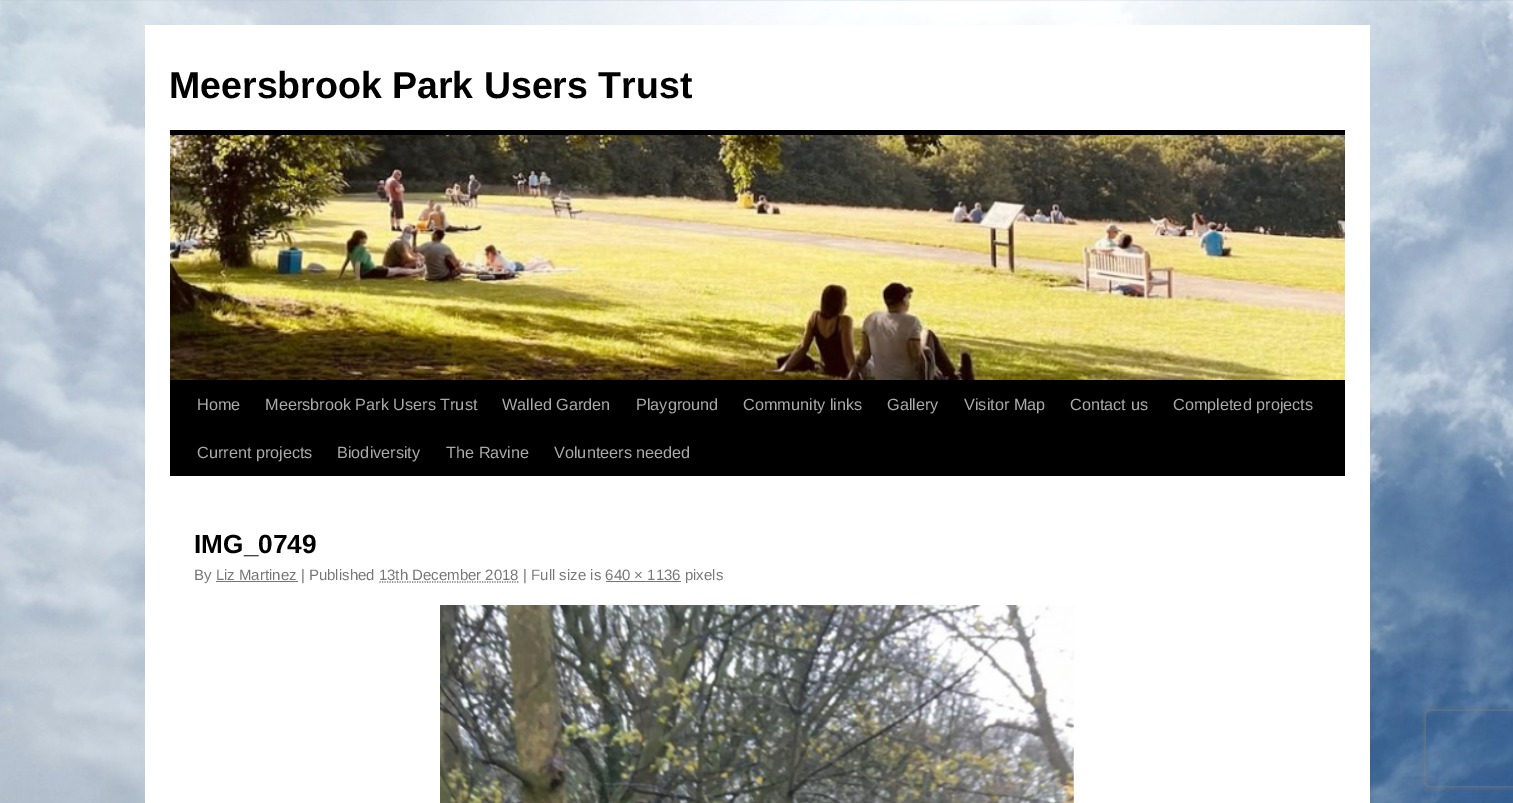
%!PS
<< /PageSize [1513 803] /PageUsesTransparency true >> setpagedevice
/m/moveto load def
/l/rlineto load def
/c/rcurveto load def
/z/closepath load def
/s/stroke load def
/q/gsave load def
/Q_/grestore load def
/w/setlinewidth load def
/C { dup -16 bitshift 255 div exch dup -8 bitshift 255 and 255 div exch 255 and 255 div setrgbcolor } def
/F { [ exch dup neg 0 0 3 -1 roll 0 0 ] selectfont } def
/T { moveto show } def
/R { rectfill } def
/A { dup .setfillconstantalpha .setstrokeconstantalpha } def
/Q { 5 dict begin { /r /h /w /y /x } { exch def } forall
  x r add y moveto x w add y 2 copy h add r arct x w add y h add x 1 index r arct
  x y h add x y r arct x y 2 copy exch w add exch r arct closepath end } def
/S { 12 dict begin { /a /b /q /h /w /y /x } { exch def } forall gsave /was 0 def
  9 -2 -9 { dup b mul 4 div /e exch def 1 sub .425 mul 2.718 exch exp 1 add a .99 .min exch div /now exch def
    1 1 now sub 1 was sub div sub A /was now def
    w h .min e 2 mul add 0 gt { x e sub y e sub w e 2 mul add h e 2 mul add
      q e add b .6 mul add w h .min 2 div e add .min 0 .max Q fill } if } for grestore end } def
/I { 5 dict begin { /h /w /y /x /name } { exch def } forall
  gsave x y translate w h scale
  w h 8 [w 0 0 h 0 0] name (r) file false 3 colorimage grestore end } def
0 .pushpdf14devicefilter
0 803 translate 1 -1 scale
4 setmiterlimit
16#FFFFFF C
0 0 1513 803 R
(1.rgb) 0 0 1513 803 I
145 25 1225 778 R
/LiberationSans-Bold 37.5 F
16#000000 C
(Meersbrook Park Users Trust) 169 98 T
170 130 1175 5 R
170 380 1175 96 R
(2.rgb) 170 135 1175 245 I
/LiberationSans-Regular 16.25 F
16#AAAAAA C
(Home) 197 410 T
(Meersbrook Park Users Trust) 265 410 T
(Walled Garden) 502 410 T
(Playground) 636 410 T
(Community links) 743 410 T
(Gallery) 887 410 T
(Visitor Map) 964 410 T
(Contact us) 1070 410 T
(Completed projects) 1173 410 T
(Current projects) 197 458 T
(Biodiversity) 337 458 T
(The Ravine) 446 458 T
(Volunteers needed) 554 458 T
/LiberationSans-Bold 26.25 F
16#000000 C
(IMG_0749) 194 553 T
/LiberationSans-Regular 15 F
16#777777 C
(By Liz Martinez | Published 13th December 2018 | Full size is 640 × 1136 pixels) 194 580 T
216 581 82 1 R
1.2 w
[1.25 1.25] 0 setdash
379.5 582 m 140 0 l s
606 581 75 1 R
(3.rgb) 440 605 634 198 I
q
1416 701 m 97 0 l 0 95 l -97 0 l z 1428.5 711 m 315 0 l 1.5 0 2.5 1 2.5 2.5 c 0 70 l 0 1.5 -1 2.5 -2.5 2.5 c -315 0 l -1.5 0 -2.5 -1 -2.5 -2.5 c 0 -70 l 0 -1.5 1 -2.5 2.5 -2.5 c z eoclip newpath
16#808080 C
1426 711 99 75 2.5 3 1 S
Q_
.poppdf14devicefilter showpage
